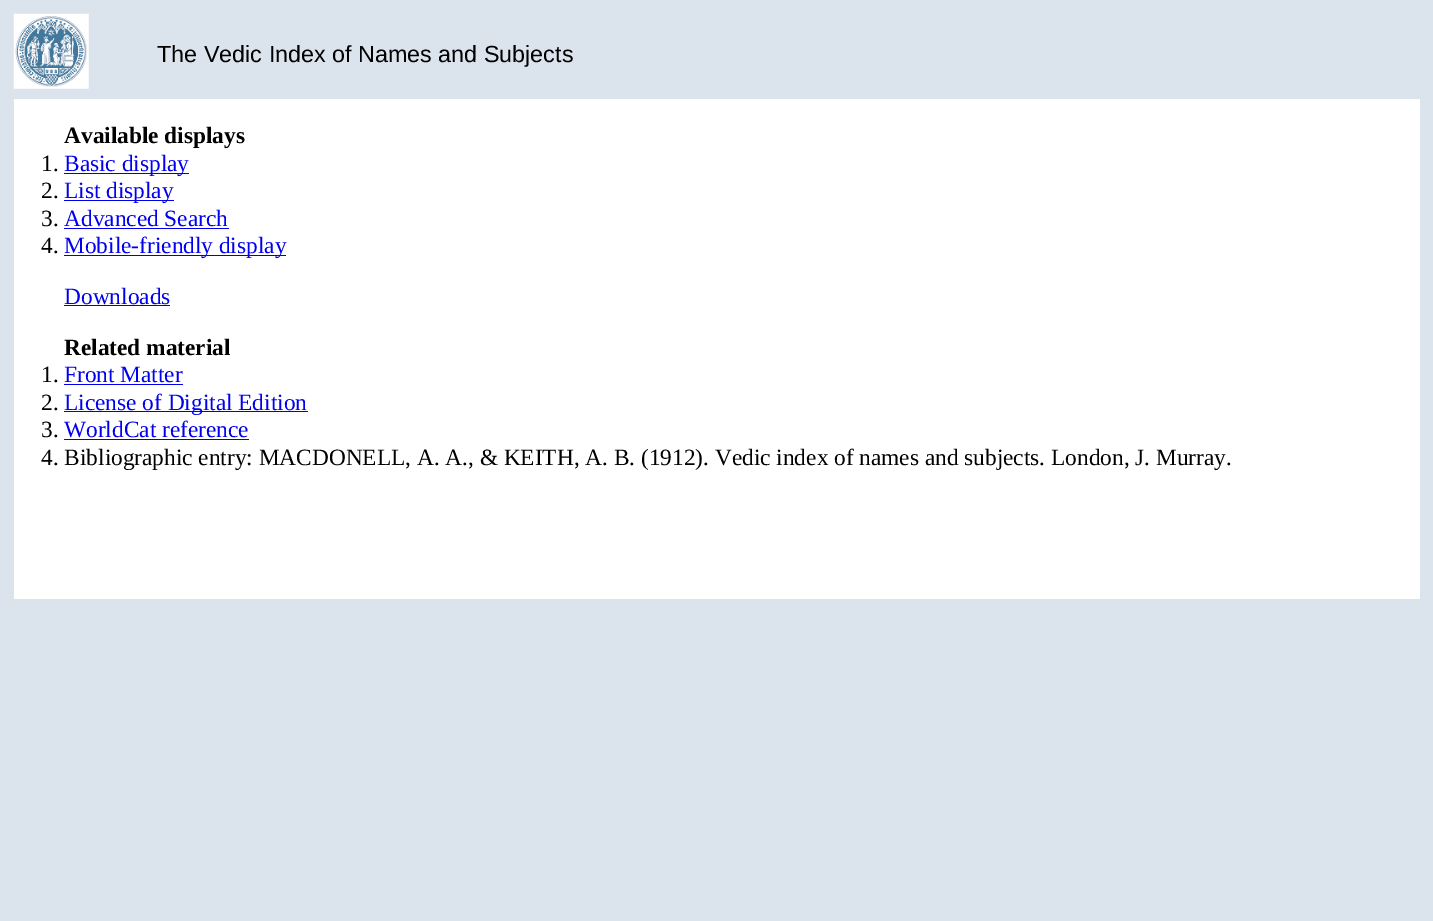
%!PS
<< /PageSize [1433 921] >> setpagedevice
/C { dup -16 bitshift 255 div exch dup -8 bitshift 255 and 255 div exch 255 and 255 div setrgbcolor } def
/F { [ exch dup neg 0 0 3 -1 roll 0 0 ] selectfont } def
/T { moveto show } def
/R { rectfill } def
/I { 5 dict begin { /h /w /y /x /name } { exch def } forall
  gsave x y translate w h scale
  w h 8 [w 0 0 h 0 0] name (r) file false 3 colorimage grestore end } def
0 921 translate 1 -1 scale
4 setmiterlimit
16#DBE4ED C
0 0 1433 921 R
(1.rgb) 13 13 76 76 I
/LiberationSans-Regular 23.33 F
16#000000 C
(The Vedic Index of Names and Subjects) 157 62 T
16#FFFFFF C
14 99 1406 500 R
/LiberationSerif-Bold 23.33 F
16#000000 C
(Available displays) 64 143 T
/LiberationSerif-Regular 23.33 F
(1.) 41 171 T
16#0000EE C
64 173 125 1 R
(Basic display) 64 171 T
16#000000 C
(2.) 41 198 T
16#0000EE C
64 200 110 1 R
(List display) 64 198 T
16#000000 C
(3.) 41 226 T
16#0000EE C
(Advanced Search) 64 226 T
64 228 165 1 R
16#000000 C
(4.) 41 253 T
16#0000EE C
64 255 222 1 R
(Mobile-friendly display) 64 253 T
(Downloads) 64 304 T
64 305 106 1 R
/LiberationSerif-Bold 23.33 F
16#000000 C
(Related material) 64 355 T
/LiberationSerif-Regular 23.33 F
(1.) 41 382 T
16#0000EE C
(Front Matter) 64 382 T
64 384 119 1 R
16#000000 C
(2.) 41 410 T
16#0000EE C
64 411 244 1 R
(License of Digital Edition) 64 410 T
16#000000 C
(3.) 41 437 T
16#0000EE C
(WorldCat reference) 64 437 T
64 439 185 1 R
16#000000 C
(4. Bibliographic entry: MACDONELL, A. A., & KEITH, A. B. \(1912\). Vedic index of names and subjects. London, J. Murray.) 41 465 T
showpage
